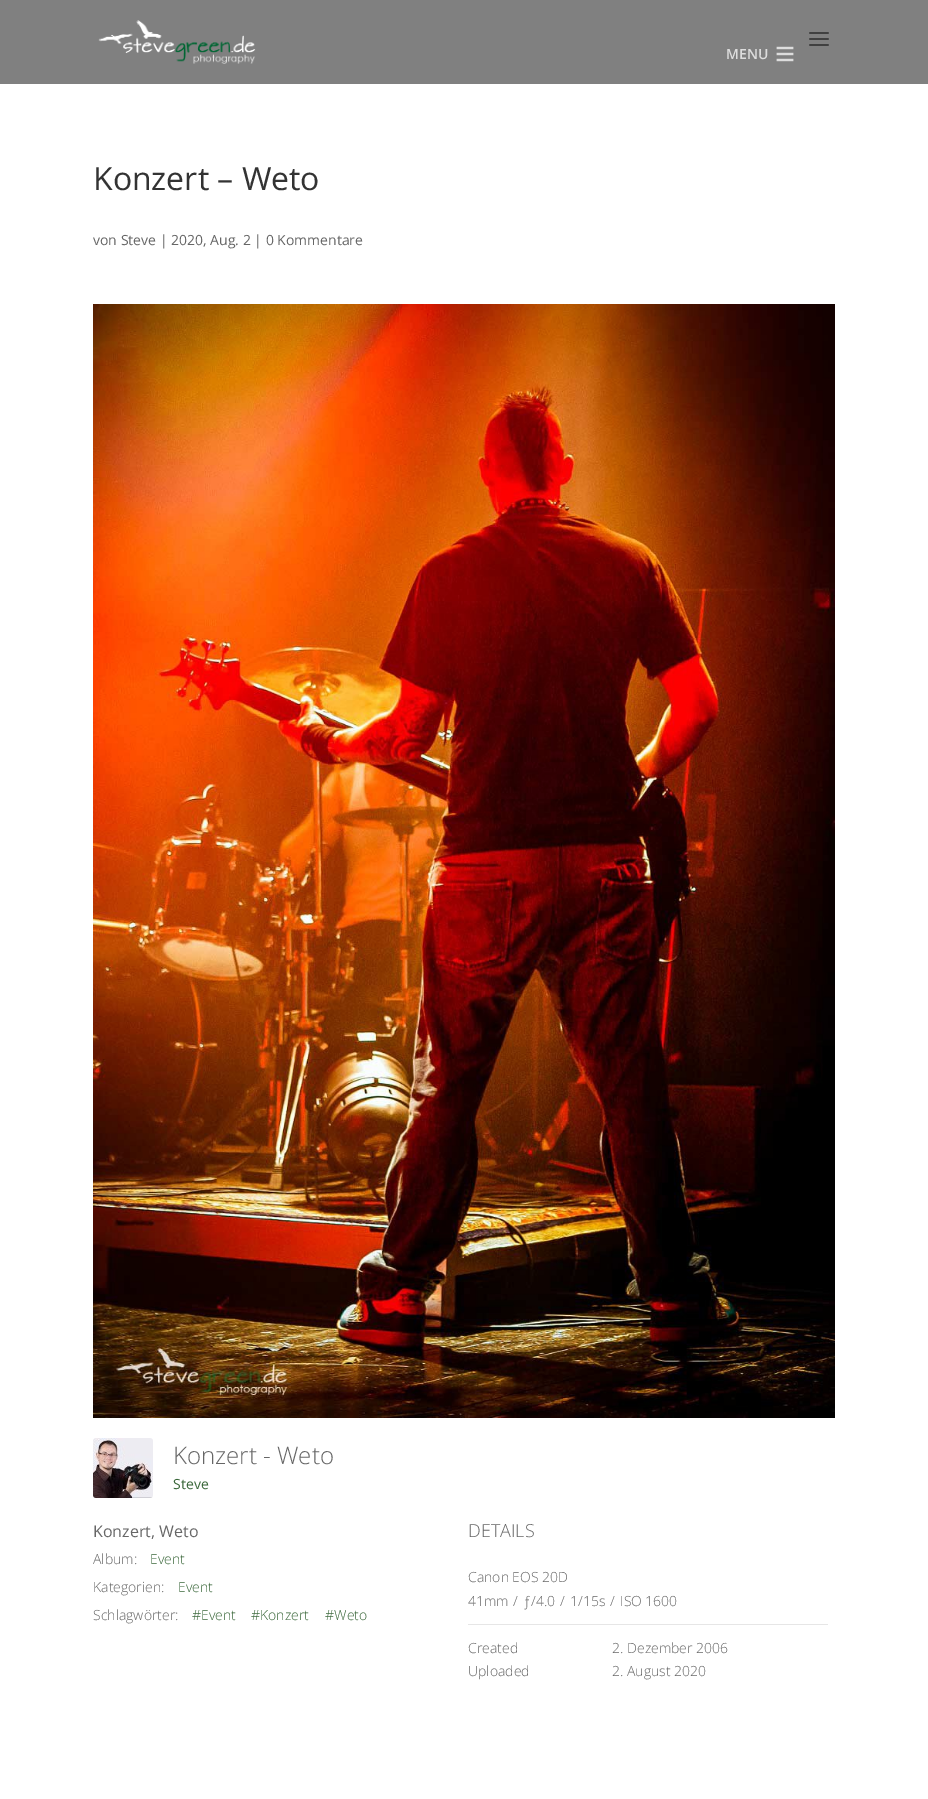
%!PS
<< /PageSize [928 1799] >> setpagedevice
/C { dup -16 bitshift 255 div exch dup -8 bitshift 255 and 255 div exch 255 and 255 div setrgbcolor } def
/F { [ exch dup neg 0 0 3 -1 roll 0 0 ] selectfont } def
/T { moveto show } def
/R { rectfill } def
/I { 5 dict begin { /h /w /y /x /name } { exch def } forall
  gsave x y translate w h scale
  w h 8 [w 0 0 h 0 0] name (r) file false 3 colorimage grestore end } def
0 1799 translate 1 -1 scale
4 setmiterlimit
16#FFFFFF C
0 0 928 1799 R
16#808080 C
0 0 928 84 R
(1.rgb) 98 20 158 44 I
(2.rgb) 809 32 20 14 I
/OpenSans-SemiBold 14 F
16#DDDDDD C
(MENU) 726 59 T
(3.rgb) 776 46 18 16 I
/OpenSans-Regular 32 F
16#333333 C
(Konzert – Weto) 93 190 T
/OpenSans-Regular 14 F
16#666666 C
(von Steve | 2020, Aug. 2 | 0 Kommentare) 93 245 T
(4.rgb) 93 304 742 1114 I
(5.rgb) 93 1438 60 60 I
/OpenSans-Light 24 F
(Konzert - Weto) 173 1464 T
/OpenSans-Regular 14 F
16#396739 C
(Steve) 173 1489 T
/OpenSans-Regular 16 F
16#666666 C
(Konzert, Weto) 93 1537 T
/OpenSans-Light 14 F
(Album:) 93 1564 T
16#396739 C
(Event) 150 1564 T
16#666666 C
(Kategorien:) 93 1592 T
16#396739 C
(Event) 178 1592 T
16#666666 C
(Schlagwörter:) 93 1620 T
16#396739 C
(#Event) 192 1620 T
(#Konzert) 251 1620 T
(#Weto) 325 1620 T
/OpenSans-Light 18 F
16#666666 C
(DETAILS) 468 1537 T
16#E6E6E6 C
468 1624 360 1 R
/OpenSans-Light 14 F
16#666666 C
(Canon EOS 20D) 468 1582 T
(41mm) 468 1606 T
(/) 513 1606 T
(ƒ/4.0) 523 1606 T
(/) 560 1606 T
(1/15s) 570 1606 T
(/) 610 1606 T
(ISO 1600) 620 1606 T
(Created) 468 1653 T
(2. Dezember 2006) 612 1653 T
(Uploaded) 468 1676 T
(2. August 2020) 612 1676 T
showpage
